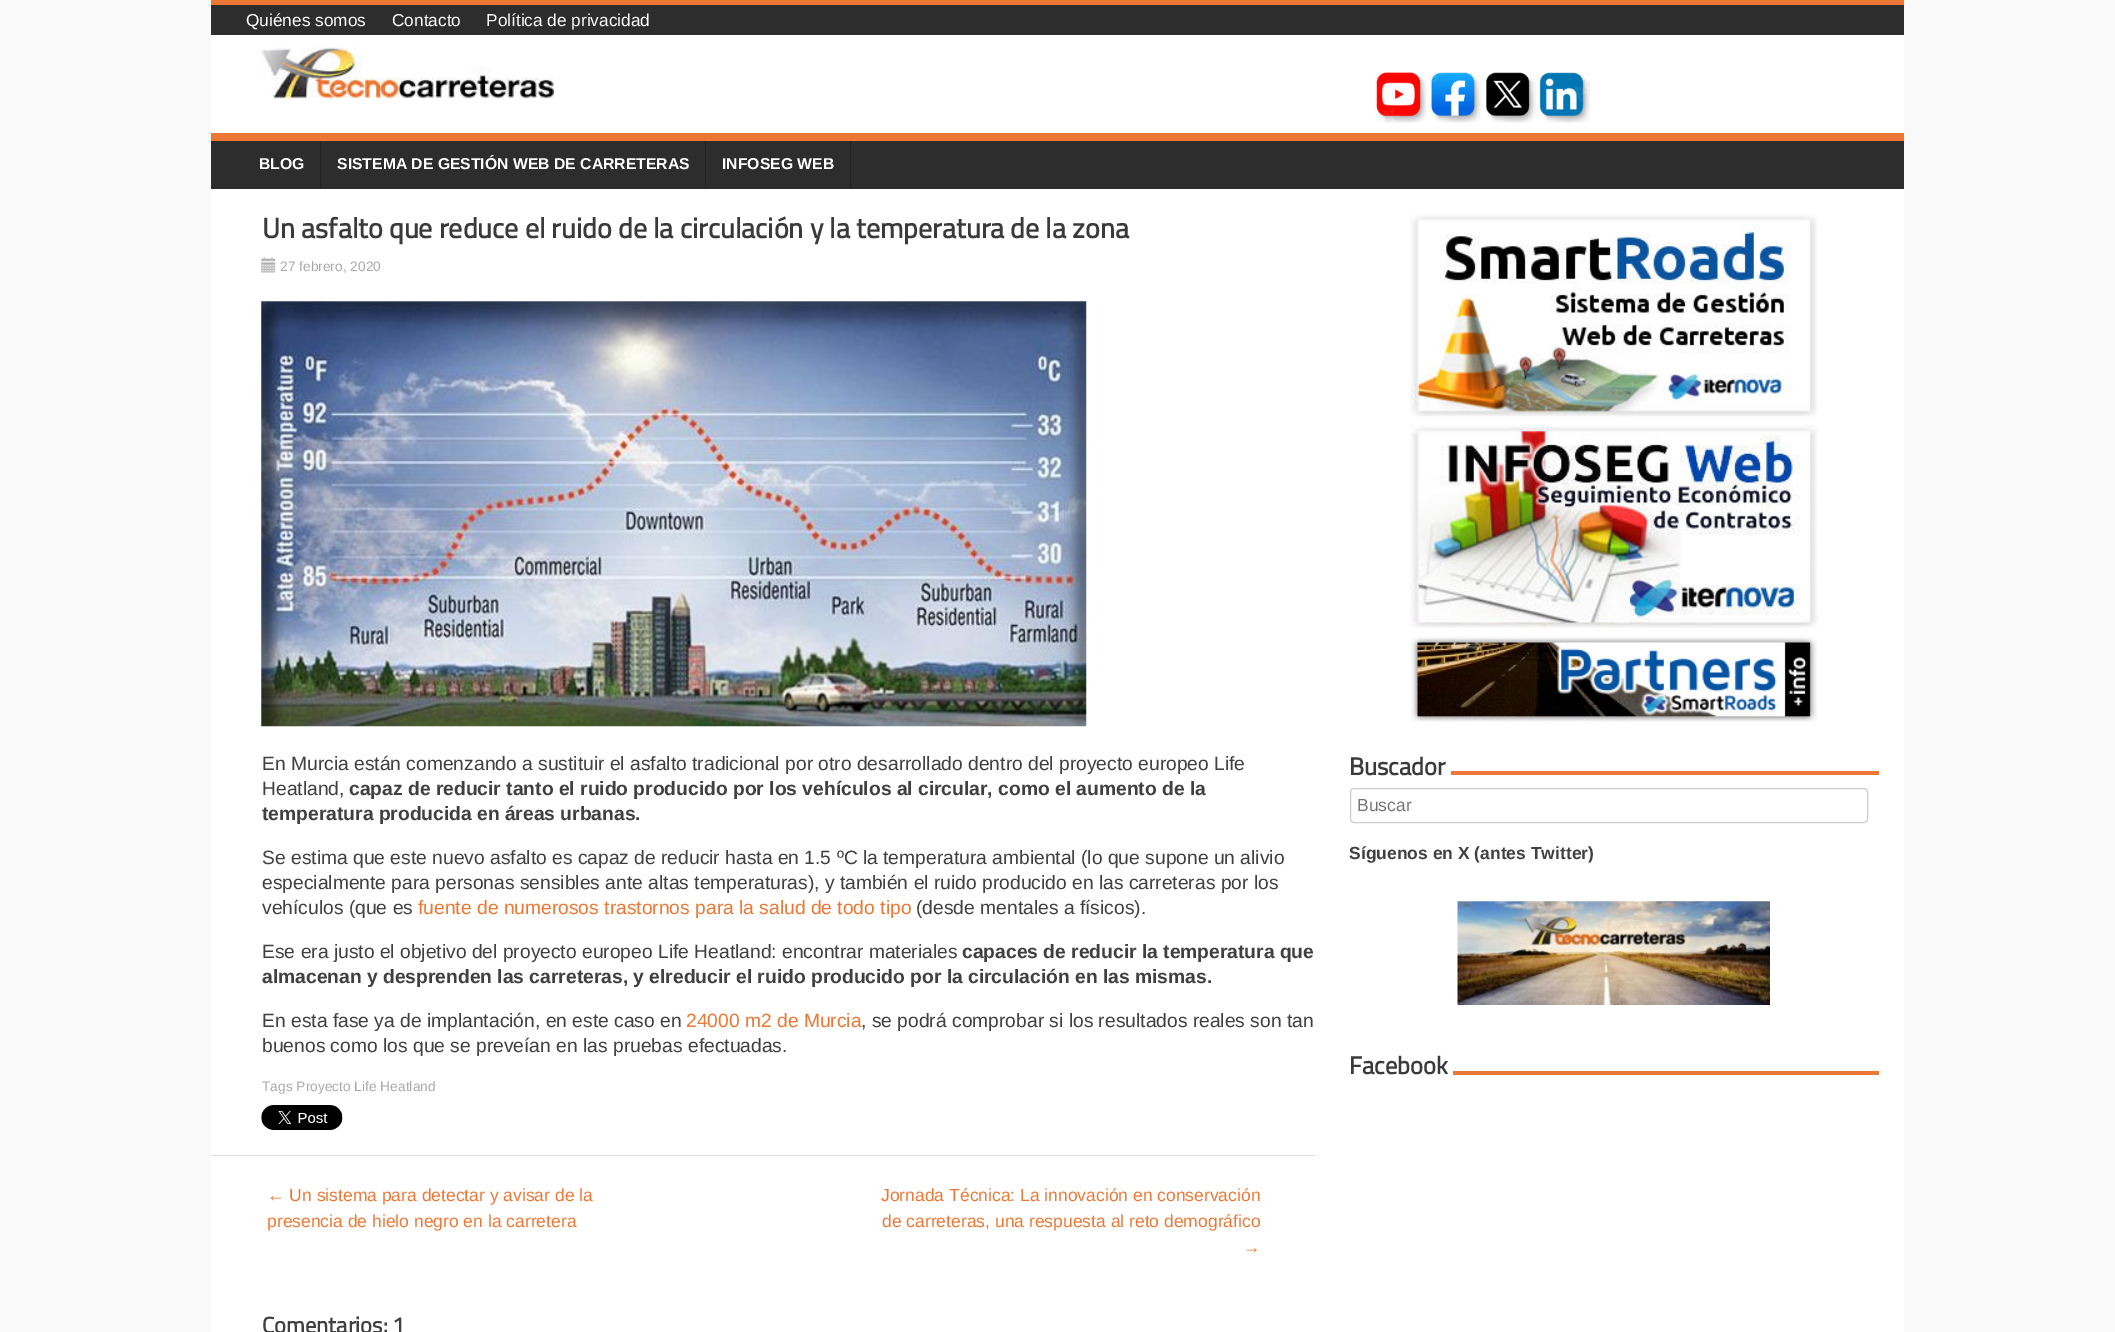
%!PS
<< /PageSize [2115 1332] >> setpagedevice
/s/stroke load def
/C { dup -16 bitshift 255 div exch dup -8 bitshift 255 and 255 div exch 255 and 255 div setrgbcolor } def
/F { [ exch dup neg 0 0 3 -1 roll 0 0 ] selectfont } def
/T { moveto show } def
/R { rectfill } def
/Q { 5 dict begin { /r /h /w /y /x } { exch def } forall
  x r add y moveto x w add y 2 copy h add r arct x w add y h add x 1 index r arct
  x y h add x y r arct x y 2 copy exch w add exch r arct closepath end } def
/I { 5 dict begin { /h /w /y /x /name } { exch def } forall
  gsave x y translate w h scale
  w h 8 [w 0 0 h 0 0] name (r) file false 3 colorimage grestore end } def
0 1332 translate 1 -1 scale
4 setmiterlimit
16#F9F9F9 C
0 0 2115 1332 R
16#FFFFFF C
211 35 1693 1297 R
16#2D2D2D C
211 5 1693 30 R
16#ED7835 C
211 0 1693 5 R
/LiberationSans-Regular 17.25 F
16#FFFFFF C
(Quiénes somos) 246 26 T
(Contacto) 392 26 T
(Política de privacidad) 486 26 T
(1.rgb) 261 47 294 52 I
(2.rgb) 1376 72 51 51 I
(3.rgb) 1431 72 50 51 I
(4.rgb) 1486 72 50 51 I
(5.rgb) 1540 72 50 51 I
16#2D2D2D C
211 141 1693 48 R
16#ED7835 C
211 133 1693 8 R
16#222222 C
320 141 1 48 R
/LiberationSans-Bold 15.75 F
16#FFFFFF C
(BLOG) 259 169 T
16#222222 C
705 141 1 48 R
16#FFFFFF C
(SISTEMA DE GESTIÓN WEB DE CARRETERAS) 337 169 T
16#222222 C
850 141 1 48 R
16#FFFFFF C
(INFOSEG WEB) 722 169 T
16#DDDDDD C
211 1155 1104 1 R
/TitilliumWeb-Bold 28 F
16#3A3A3A C
(Un asfalto que reduce el ruido de la circulación y la temperatura de la zona) 262 238 T
(6.rgb) 261 257 15 16 I
/LiberationSans-Regular 13.75 F
16#AAAAAA C
(27 febrero, 2020) 280 271 T
(7.rgb) 261 301 826 426 I
/LiberationSans-Regular 19.25 F
16#404040 C
(En Murcia están comenzando a sustituir el asfalto tradicional por otro desarrollado dentro del proyecto europeo Life) 262 770 T
(Heatland,) 262 795 T
/LiberationSans-Bold 19.25 F
(capaz de reducir tanto el ruido producido por los vehículos al circular, como el aumento de la) 349 795 T
(temperatura producida en áreas urbanas.) 262 820 T
/LiberationSans-Regular 19.25 F
(Se estima que este nuevo asfalto es capaz de reducir hasta en 1.5 ºC la temperatura ambiental \(lo que supone un alivio) 262 864 T
(especialmente para personas sensibles ante altas temperaturas\), y también el ruido producido en las carreteras por los) 262 889 T
(vehículos \(que es) 262 914 T
16#ED7835 C
(fuente de numerosos trastornos para la salud de todo tipo) 418 914 T
16#404040 C
(\(desde mentales a físicos\).) 916 914 T
(Ese era justo el objetivo del proyecto europeo Life Heatland: encontrar materiales) 262 958 T
/LiberationSans-Bold 19.25 F
(capaces de reducir la temperatura que) 962 958 T
(almacenan y desprenden las carreteras, y elreducir el ruido producido por la circulación en las mismas.) 262 983 T
/LiberationSans-Regular 19.25 F
(En esta fase ya de implantación, en este caso en) 262 1027 T
16#ED7835 C
(24000 m2 de Murcia) 686 1027 T
16#404040 C
(, se podrá comprobar si los resultados reales son tan) 861 1027 T
(buenos como los que se preveían en las pruebas efectuadas.) 262 1052 T
/LiberationSans-Regular 13.75 F
16#AAAAAA C
(Tags Proyecto Life Heatland) 262 1091 T
(8.rgb) 261 1105 82 25 I
/LiberationSans-Regular 17.5 F
16#ED7835 C
(← Un sistema para detectar y avisar de la) 267 1201 T
(presencia de hielo negro en la carretera) 267 1227 T
(Jornada Técnica: La innovación en conservación) 881 1201 T
(de carreteras, una respuesta al reto demográfico) 882 1227 T
(→) 1243 1253 T
/TitilliumWeb-Bold 22.5 F
16#404040 C
(Comentarios: 1) 262 1333 T
(9.rgb) 1410 214 408 203 I
(10.rgb) 1410 425 408 203 I
(11.rgb) 1410 636 408 87 I
/TitilliumWeb-Bold 24.5 F
16#3A3A3A C
(Buscador) 1349 775 T
16#ED7835 C
1451 771 428 4 R
16#CCCCCC C
1350.5 788.5 517 34 3.5 Q s
/LiberationSans-Regular 17.5 F
16#757575 C
(Buscar) 1357 811 T
/LiberationSans-Bold 17.5 F
16#404040 C
(Síguenos en X \(antes Twitter\)) 1349 859 T
(12.rgb) 1457 901 313 104 I
/TitilliumWeb-Bold 24.5 F
16#3A3A3A C
(Facebook) 1349 1074 T
16#ED7835 C
1453 1071 426 4 R
showpage
